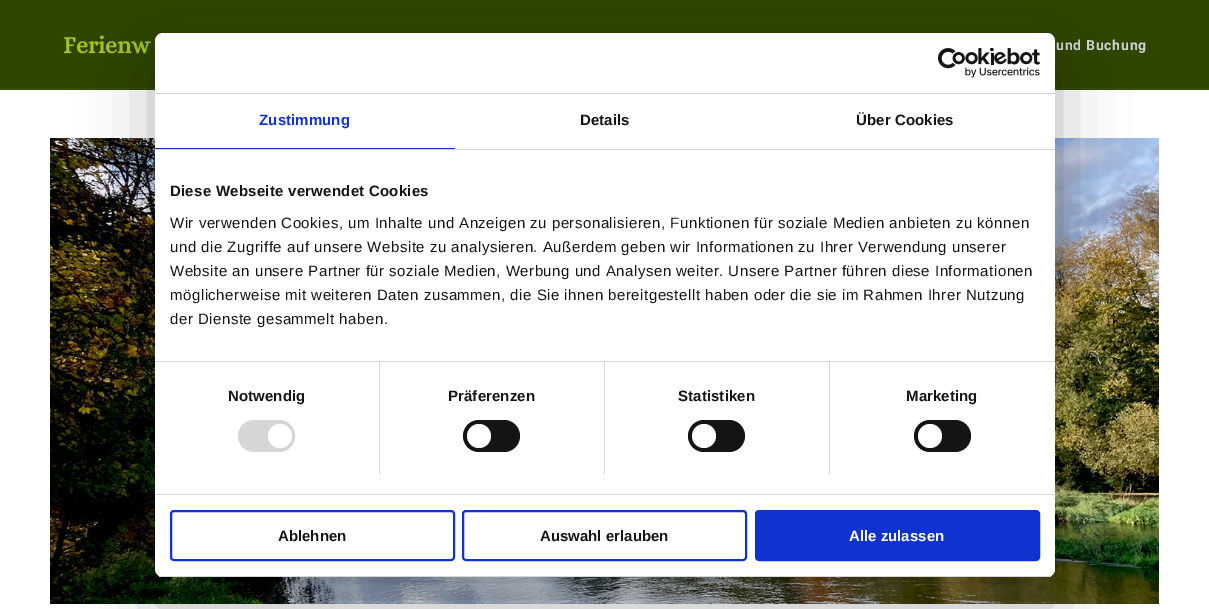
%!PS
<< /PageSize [1209 609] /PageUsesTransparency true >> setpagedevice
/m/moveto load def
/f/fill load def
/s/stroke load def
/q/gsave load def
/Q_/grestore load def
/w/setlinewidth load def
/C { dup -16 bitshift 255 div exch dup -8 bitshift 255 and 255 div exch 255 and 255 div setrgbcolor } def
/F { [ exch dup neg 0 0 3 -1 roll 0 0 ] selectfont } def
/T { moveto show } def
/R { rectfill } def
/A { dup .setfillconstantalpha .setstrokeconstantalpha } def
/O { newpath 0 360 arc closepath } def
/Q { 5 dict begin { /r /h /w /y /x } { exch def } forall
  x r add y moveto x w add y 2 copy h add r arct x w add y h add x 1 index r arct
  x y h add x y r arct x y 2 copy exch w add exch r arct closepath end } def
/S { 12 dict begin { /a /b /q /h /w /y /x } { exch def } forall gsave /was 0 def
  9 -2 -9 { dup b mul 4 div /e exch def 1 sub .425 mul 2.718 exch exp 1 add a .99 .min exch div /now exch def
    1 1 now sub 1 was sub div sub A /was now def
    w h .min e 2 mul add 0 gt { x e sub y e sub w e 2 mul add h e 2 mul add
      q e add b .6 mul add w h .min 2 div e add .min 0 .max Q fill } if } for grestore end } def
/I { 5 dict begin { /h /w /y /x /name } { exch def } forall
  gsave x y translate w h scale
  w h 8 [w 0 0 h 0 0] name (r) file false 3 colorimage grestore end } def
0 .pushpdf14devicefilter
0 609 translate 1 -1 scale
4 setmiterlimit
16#2E4600 C
0 0 1209 609 R
/Alice-Bold 24 F
16#A2C523 C
(Ferienw) 63 53 T
/Roboto-Bold 14 F
16#D4D4D4 C
1056 50 m .75 0 (und Buchung) ashow
16#FFFFFF C
0 90 1209 519 R
16#384F0D C
0 88 1209 1 R
(1.rgb) 50 138 1109 466 I
16#000000 C
155 65 900 544 8 34 .3 S
16#FFFFFF C
155 33 900 544 8 Q f
16#D6D6D6 C
155 93 900 1 R
(2.rgb) 938 48 102 30 I
155 149 900 1 R
16#1032CF C
155 148 300 1 R
/LiberationSans-Bold 15 F
259 125 m .1 0 (Zustimmung) ashow
16#141414 C
580 125 m .1 0 (Details) ashow
856 125 m .1 0 (Über Cookies) ashow
16#D6D6D6 C
155 361 900 1 R
16#141414 C
170 196 m .25 0 (Diese Webseite verwendet Cookies) ashow
/LiberationSans-Regular 15 F
170 228 m .5 0 (Wir verwenden Cookies, um Inhalte und Anzeigen zu personalisieren, Funktionen für soziale Medien anbieten zu können) ashow
170 252 m .5 0 (und die Zugriffe auf unsere Website zu analysieren. Außerdem geben wir Informationen zu Ihrer Verwendung unserer) ashow
170 276 m .5 0 (Website an unsere Partner für soziale Medien, Werbung und Analysen weiter. Unsere Partner führen diese Informationen) ashow
170 300 m .5 0 (möglicherweise mit weiteren Daten zusammen, die Sie ihnen bereitgestellt haben oder die sie im Rahmen Ihrer Nutzung) ashow
170 324 m .5 0 (der Dienste gesammelt haben.) ashow
16#D6D6D6 C
155 494 900 1 R
379 362 1 112 R
/LiberationSans-Bold 15 F
16#141414 C
228 401 m .1 0 (Notwendig) ashow
16#D6D6D6 C
238 420 57 32 16 Q f
16#FFFFFF C
280 436 12 O f
16#D6D6D6 C
604 362 1 112 R
16#141414 C
448 401 m .1 0 (Präferenzen) ashow
463 420 57 32 16 Q f
16#FFFFFF C
479 436 12 O f
16#D6D6D6 C
829 362 1 112 R
16#141414 C
678 401 m .1 0 (Statistiken) ashow
688 420 57 32 16 Q f
16#FFFFFF C
704 436 12 O f
16#141414 C
906 401 m .1 0 (Marketing) ashow
914 420 57 32 16 Q f
16#FFFFFF C
930 436 12 O f
q
155 33 900 544 8 Q clip newpath
16#D6D6D6 C
155 576 900 1 R
Q_
16#1032CF C
2 w
171 511 283 49 3 Q s
16#141414 C
(Ablehnen) 278 541 T
16#1032CF C
463 511 283 49 3 Q s
16#141414 C
(Auswahl erlauben) 540 541 T
16#1032CF C
756 511 283 49 3 Q q f Q_
s
16#FFFFFF C
(Alle zulassen) 849 541 T
.poppdf14devicefilter showpage
